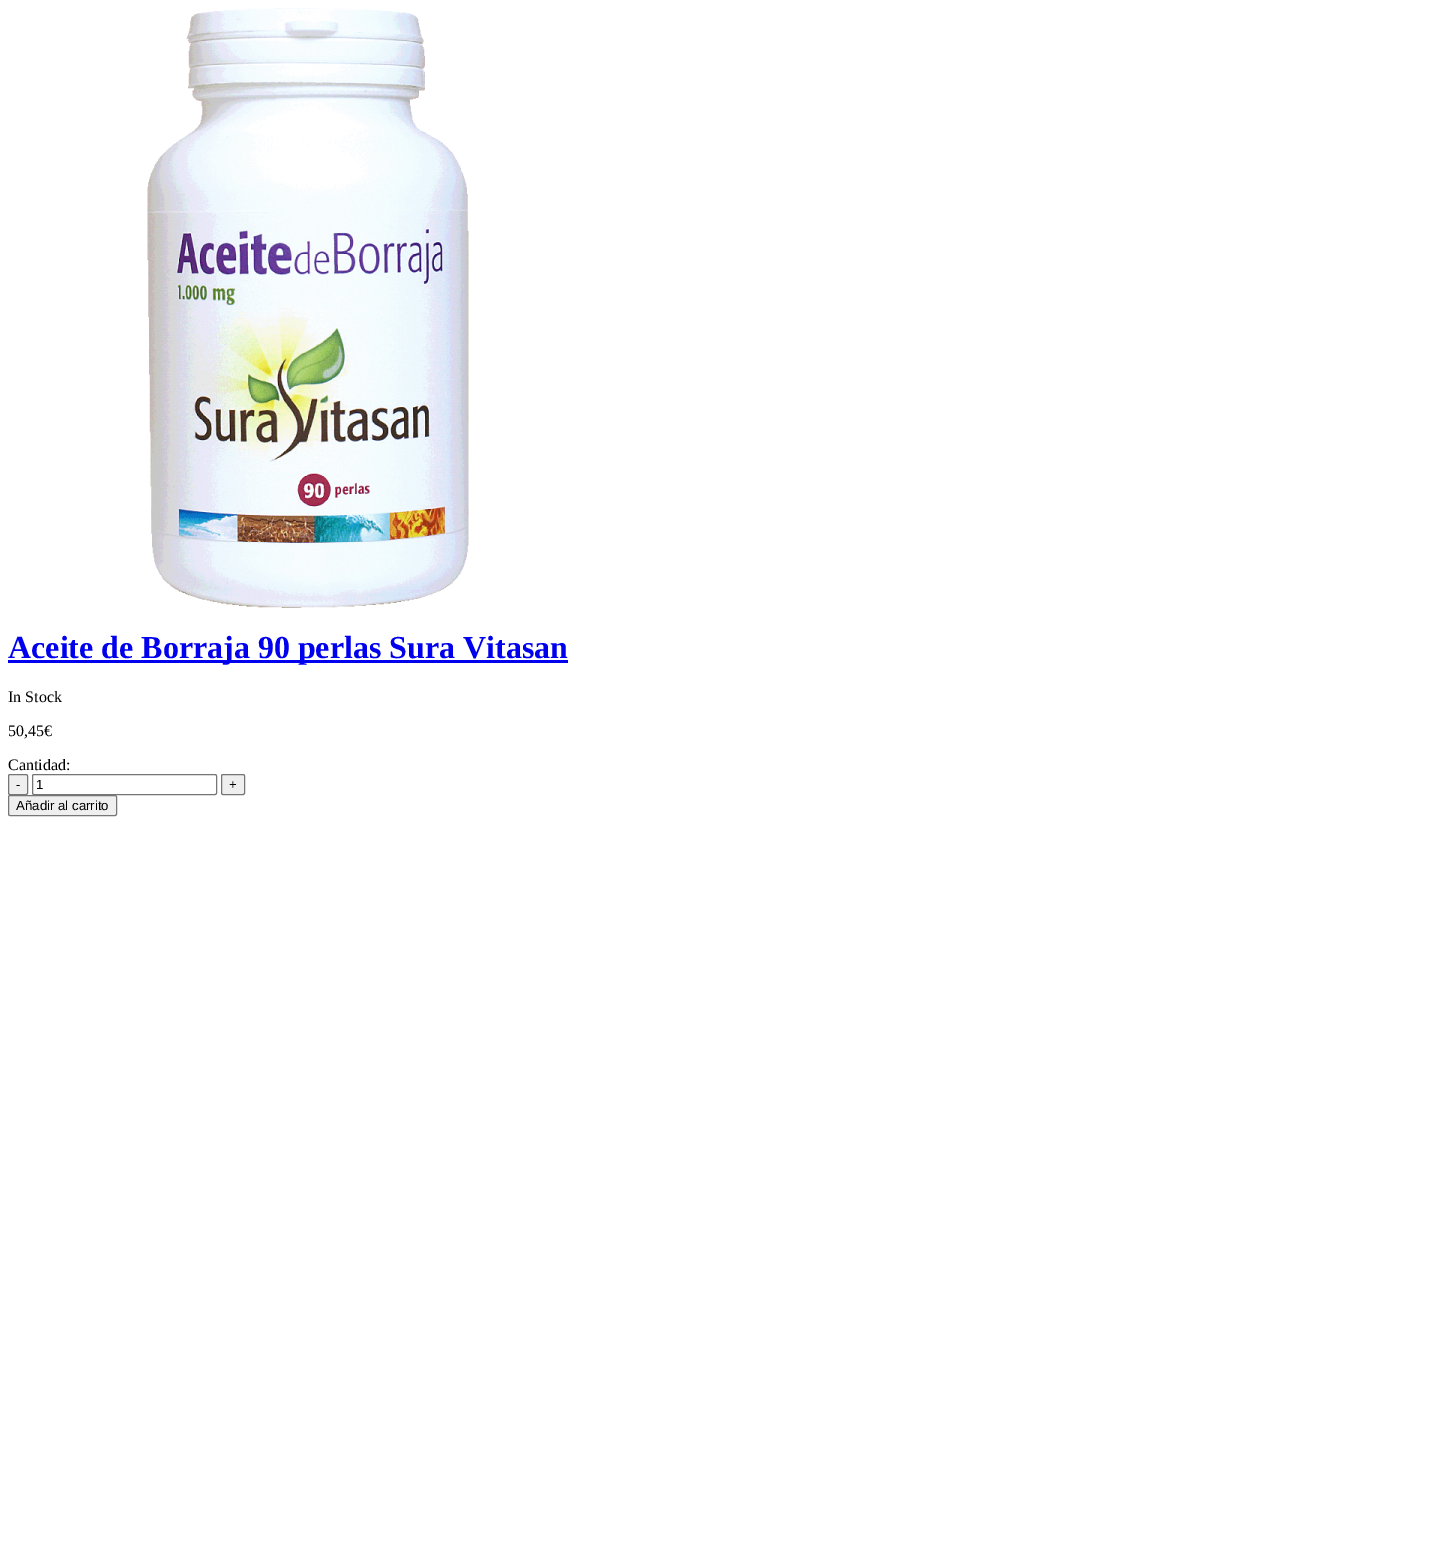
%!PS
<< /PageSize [1443 1550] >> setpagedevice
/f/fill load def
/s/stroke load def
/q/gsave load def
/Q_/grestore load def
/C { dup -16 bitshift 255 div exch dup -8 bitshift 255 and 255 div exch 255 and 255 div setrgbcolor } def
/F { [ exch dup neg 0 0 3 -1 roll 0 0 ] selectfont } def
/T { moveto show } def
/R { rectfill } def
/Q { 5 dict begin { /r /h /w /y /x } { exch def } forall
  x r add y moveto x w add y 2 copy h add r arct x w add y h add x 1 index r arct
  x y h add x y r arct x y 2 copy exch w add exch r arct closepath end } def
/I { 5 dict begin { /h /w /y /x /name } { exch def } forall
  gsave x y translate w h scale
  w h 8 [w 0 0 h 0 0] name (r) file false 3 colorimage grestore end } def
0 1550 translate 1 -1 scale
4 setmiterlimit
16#FFFFFF C
0 0 1443 1550 R
(1.rgb) 147 8 322 600 I
16#0000EE C
8 660 560 3 R
/LiberationSerif-Bold 32 F
(Aceite de Borraja 90 perlas Sura Vitasan) 8 658 T
/LiberationSerif-Regular 16 F
16#000000 C
(In Stock) 8 702 T
(50,45€) 8 736 T
(Cantidad:) 8 770 T
16#EFEFEF C
8.5 774.5 19 20 1.5 Q q f Q_
16#767676 C
s
/LiberationSans-Regular 13.25 F
16#000000 C
(-) 16 789 T
16#767676 C
32.5 774.5 184 20 1.5 Q s
16#000000 C
(1) 36 789 T
16#EFEFEF C
221.5 774.5 23 20 1.5 Q q f Q_
16#767676 C
s
16#000000 C
(+) 229 789 T
16#EFEFEF C
8.5 795.5 108 20 1.5 Q q f Q_
16#767676 C
s
16#000000 C
(Añadir al carrito) 16 810 T
showpage
